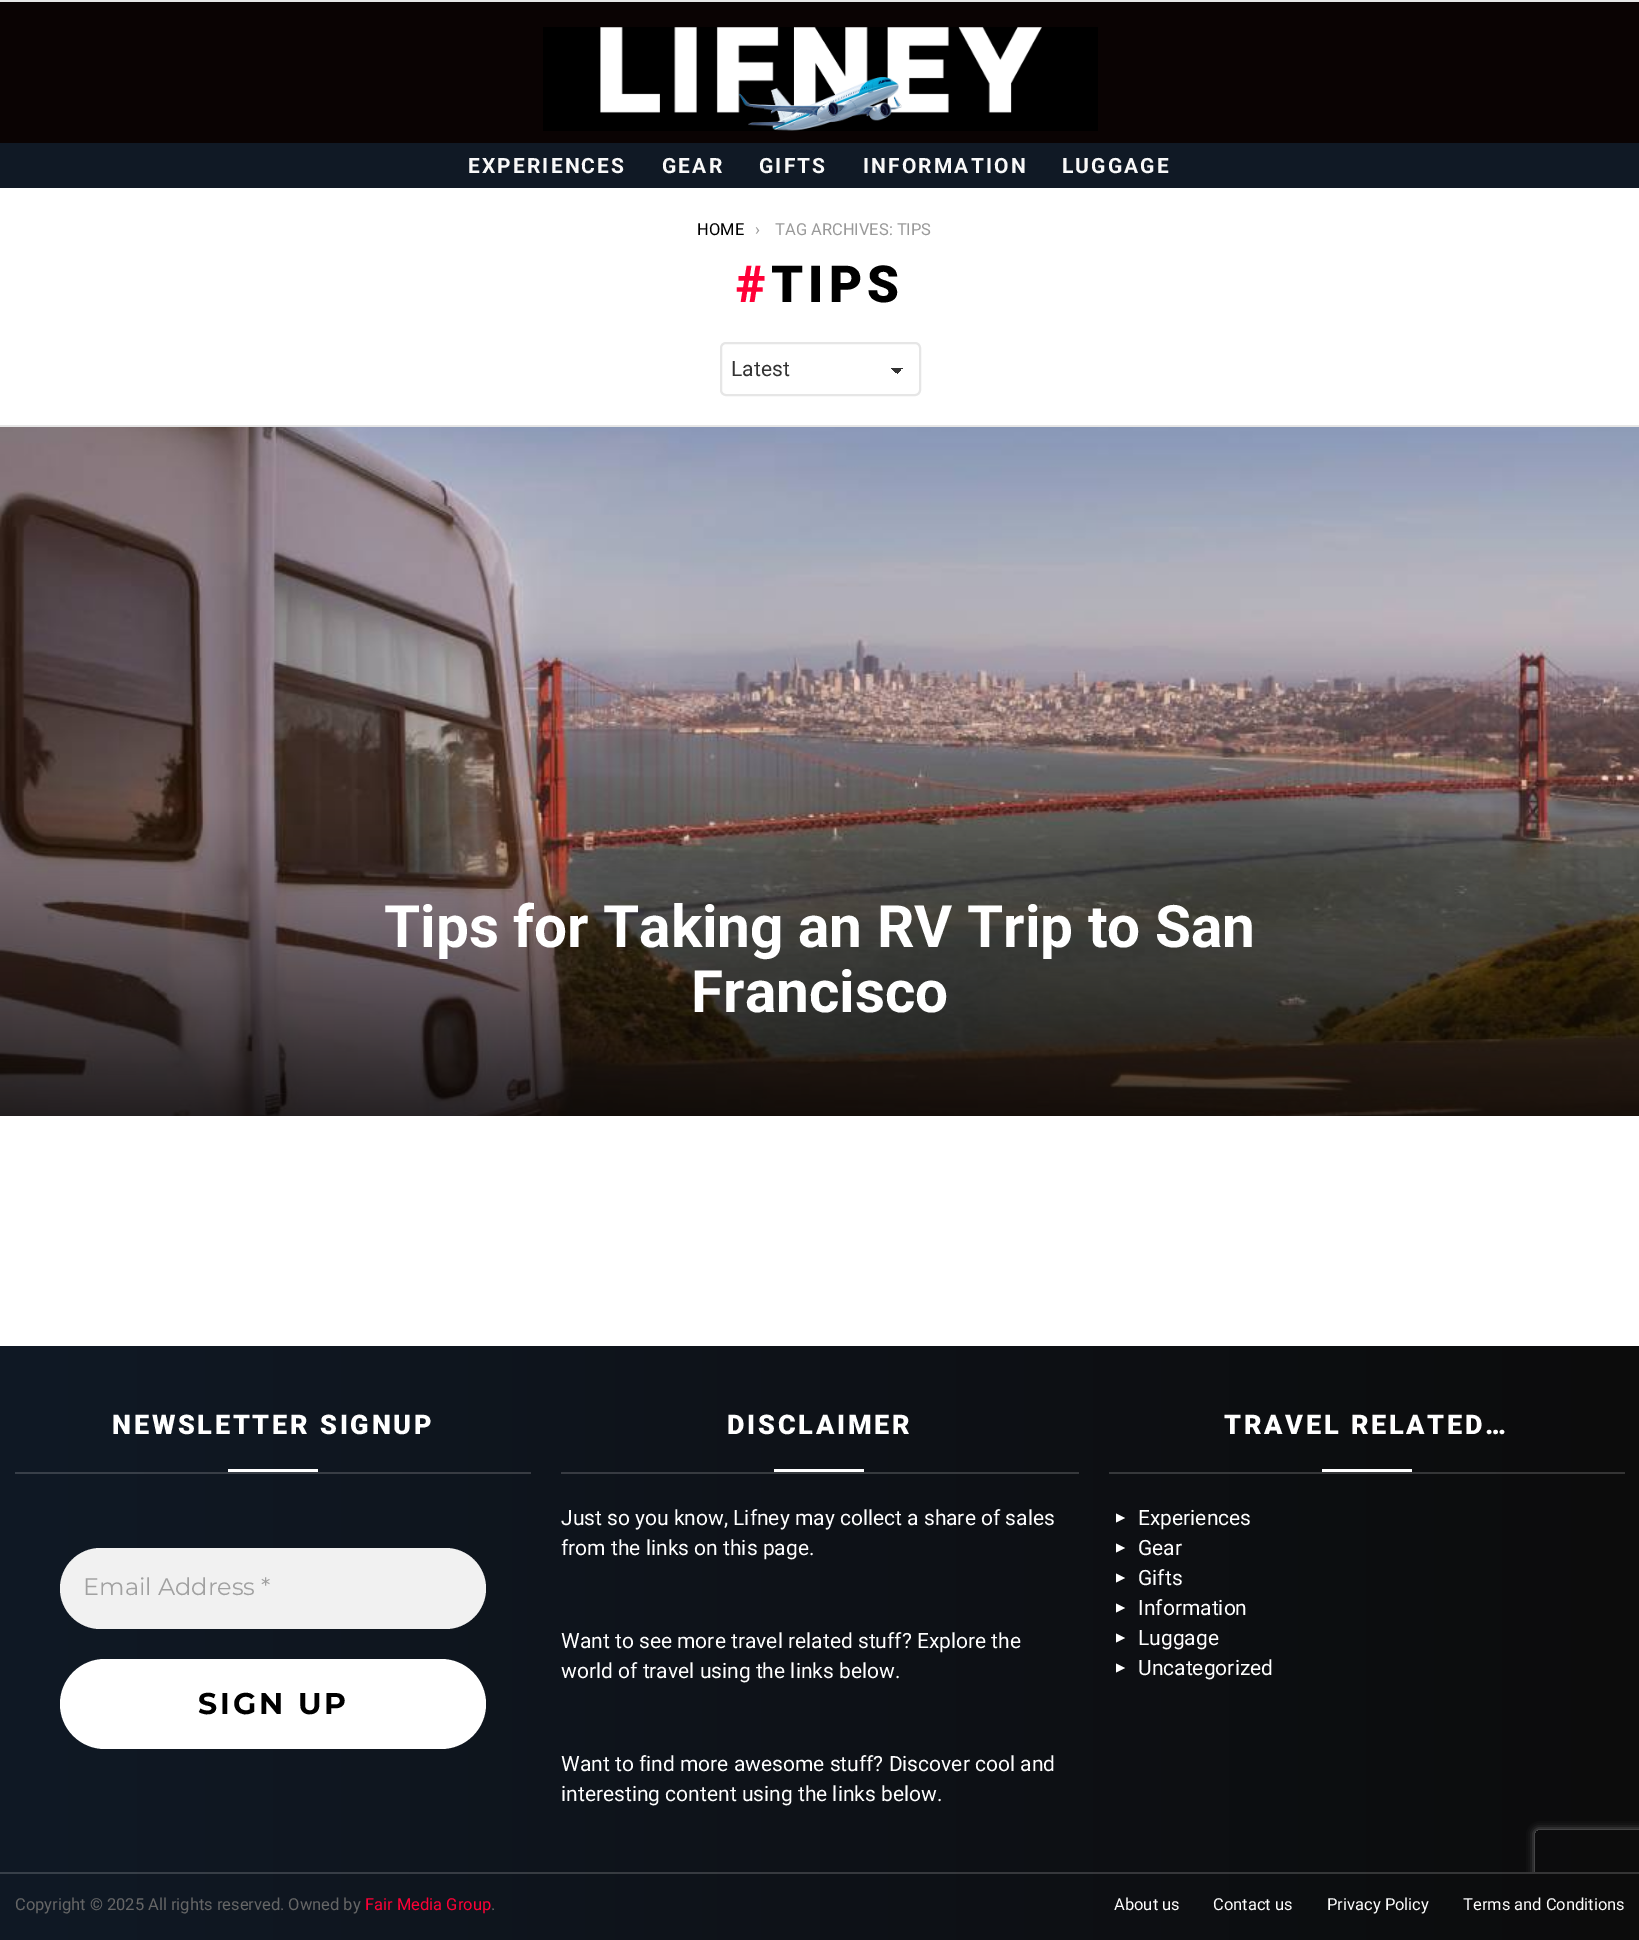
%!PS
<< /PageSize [1639 1940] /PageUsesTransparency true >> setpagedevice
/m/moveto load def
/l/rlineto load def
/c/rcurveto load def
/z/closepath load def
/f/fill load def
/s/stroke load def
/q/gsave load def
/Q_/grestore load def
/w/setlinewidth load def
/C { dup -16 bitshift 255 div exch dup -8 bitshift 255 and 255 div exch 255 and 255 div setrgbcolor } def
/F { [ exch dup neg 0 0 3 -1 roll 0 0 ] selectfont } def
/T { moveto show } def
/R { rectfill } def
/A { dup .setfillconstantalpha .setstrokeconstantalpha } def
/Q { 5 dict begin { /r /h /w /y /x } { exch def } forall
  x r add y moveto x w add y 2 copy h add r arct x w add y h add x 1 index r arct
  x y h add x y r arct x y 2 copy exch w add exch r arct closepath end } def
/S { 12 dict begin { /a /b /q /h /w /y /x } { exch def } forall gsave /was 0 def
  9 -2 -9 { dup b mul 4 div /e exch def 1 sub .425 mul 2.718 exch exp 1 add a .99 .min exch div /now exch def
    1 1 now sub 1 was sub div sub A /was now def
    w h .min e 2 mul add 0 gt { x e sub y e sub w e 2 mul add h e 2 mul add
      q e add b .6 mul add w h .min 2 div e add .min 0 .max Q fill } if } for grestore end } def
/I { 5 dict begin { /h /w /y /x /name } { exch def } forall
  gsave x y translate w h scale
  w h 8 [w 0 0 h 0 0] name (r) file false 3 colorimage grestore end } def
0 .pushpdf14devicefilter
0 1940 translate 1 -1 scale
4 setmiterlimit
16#FFFFFF C
0 0 1639 1940 R
16#E6E6E6 C
0 0 1639 2 R
16#0A0303 C
0 2 1639 141 R
16#000000 C
543 27 555 104 R
(1.rgb) 600 27 442 104 I
16#101925 C
0 143 1639 45 R
/Roboto-Bold 21 F
16#F9F9F9 C
468 173 m 2.1 0 (EXPERIENCES) ashow
662 173 m 2.1 0 (GEAR) ashow
759 173 m 2.1 0 (GIFTS) ashow
863 173 m 2.1 0 (INFORMATION) ashow
1062 173 m 2.1 0 (LUGGAGE) ashow
/Roboto-Regular 16.5 F
16#000000 C
(HOME) 697 235 T
16#999999 C
(›) 755 235 T
(TAG ARCHIVES: TIPS) 775 235 T
/Roboto-Black 51 F
16#FF0036 C
736 302 m 5 0 (#) ashow
16#000000 C
771 302 m 5 0 (TIPS) ashow
q 897 368 m 8 0 l 0 6 l -8 0 l z clip newpath
<< /ShadingType 2 /ColorSpace /DeviceRGB /Coords [897 367 904 374] /Extend [true true] /Function << /FunctionType 3 /Domain [0 1] /Functions [<< /FunctionType 2 /Domain [0 1] /C0 [.2 .2 .2] /C1 [.2 .2 .2] /N 1 >> << /FunctionType 2 /Domain [0 1] /C0 [1 1 1] /C1 [1 1 1] /N 1 >>] /Bounds [.5] /Encode [0 1 0 1] >> >> shfill Q_
q 890 368 m 7 0 l 0 5 l -7 0 l z clip newpath
<< /ShadingType 2 /ColorSpace /DeviceRGB /Coords [890 374 897 367] /Extend [true true] /Function << /FunctionType 3 /Domain [0 1] /Functions [<< /FunctionType 2 /Domain [0 1] /C0 [1 1 1] /C1 [1 1 1] /N 1 >> << /FunctionType 2 /Domain [0 1] /C0 [.2 .2 .2] /C1 [.2 .2 .2] /N 1 >>] /Bounds [.5] /Encode [0 1 0 1] >> >> shfill Q_
16#E6E6E6 C
2 w
721 343 199 52 5 Q s
/Roboto-Regular 21 F
16#333333 C
(Latest) 731 376 T
16#E6E6E6 C
0 425 1639 2 R
(2.rgb) 0 427 1639 689 I
/Roboto-Bold 58.5 F
16#FFFFFF C
(Tips for Taking an RV Trip to San) 384 947 T
(Francisco) 691 1012 T
q 0 1346 m 1639 0 l 0 526 l -1639 0 l z clip newpath
<< /ShadingType 2 /ColorSpace /DeviceRGB /Coords [0 1609 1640 1609] /Extend [true true] /Function << /FunctionType 2 /Domain [0 1] /C0 [.063 .098 .145] /C1 [.047 .047 .047] /N 1 >> >> shfill Q_
q 1109 1472 m 516 0 l 0 2 l -516 0 l z clip newpath
<< /ShadingType 2 /ColorSpace /DeviceRGB /Coords [0 1609 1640 1609] /Extend [true true] /Function << /FunctionType 2 /Domain [0 1] /C0 [.224 .251 .29] /C1 [.208 .208 .208] /N 1 >> >> shfill Q_
q 561 1472 m 518 0 l 0 2 l -518 0 l z clip newpath
<< /ShadingType 2 /ColorSpace /DeviceRGB /Coords [0 1609 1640 1609] /Extend [true true] /Function << /FunctionType 2 /Domain [0 1] /C0 [.224 .251 .29] /C1 [.208 .208 .208] /N 1 >> >> shfill Q_
q 15 1472 m 516 0 l 0 2 l -516 0 l z clip newpath
<< /ShadingType 2 /ColorSpace /DeviceRGB /Coords [0 1609 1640 1609] /Extend [true true] /Function << /FunctionType 2 /Domain [0 1] /C0 [.224 .251 .29] /C1 [.208 .208 .208] /N 1 >> >> shfill Q_
/Roboto-Black 27 F
112 1434 m 2.75 0 (NEWSLETTER SIGNUP) ashow
228 1469 90 3 R
16#F1F1F1 C
60 1548 426 81 40.5 Q f
/Montserrat-Regular 24 F
16#A1A1A1 C
(Email Address *) 83 1595 T
16#FFFFFF C
60 1659 426 90 45 Q f
/Montserrat-Bold 30 F
16#000000 C
198 1714 m 3 0 (SIGN UP) ashow
q
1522 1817 m 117 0 l 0 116 l -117 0 l z 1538 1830 m 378 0 l 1.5 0 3 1.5 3 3 c 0 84 l 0 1.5 -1.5 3 -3 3 c -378 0 l -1.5 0 -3 -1.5 -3 -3 c 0 -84 l 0 -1.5 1.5 -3 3 -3 c z eoclip newpath
16#808080 C
1535 1830 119 90 3 4 1 S
Q_
/Roboto-Black 27 F
16#FFFFFF C
727 1434 m 2.75 0 (DISCLAIMER) ashow
774 1469 90 3 R
/Roboto-Regular 21 F
(Just so you know, Lifney may collect a share of sales) 561 1525 T
(from the links on this page.) 561 1555 T
(Want to see more travel related stuff? Explore the) 561 1648 T
(world of travel using the links below.) 561 1678 T
(Want to find more awesome stuff? Discover cool and) 561 1771 T
(interesting content using the links below.) 561 1801 T
/Roboto-Black 27 F
1224 1434 m 2.75 0 (TRAVEL RELATED…) ashow
1322 1469 90 3 R
1125 1518 m -9 -4.5 l 0 9 l z f
/Roboto-Regular 21 F
(Experiences) 1138 1525 T
1125 1548 m -9 -4.5 l 0 9 l z f
(Gear) 1138 1555 T
1125 1578 m -9 -4.5 l 0 9 l z f
(Gifts) 1138 1585 T
1125 1608 m -9 -4.5 l 0 9 l z f
(Information) 1138 1615 T
1125 1638 m -9 -4.5 l 0 9 l z f
(Luggage) 1138 1645 T
1125 1668 m -9 -4.5 l 0 9 l z f
(Uncategorized) 1138 1675 T
q 0 1872 m 1639 0 l 0 68 l -1639 0 l z clip newpath
<< /ShadingType 2 /ColorSpace /DeviceRGB /Coords [0 1907 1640 1907] /Extend [true true] /Function << /FunctionType 2 /Domain [0 1] /C0 [.063 .098 .145] /C1 [.047 .047 .047] /N 1 >> >> shfill Q_
0.17 A
0 1872 1639 2 R
/Roboto-Regular 16.5 F
1 A
16#666666 C
(Copyright © 2025 All rights reserved. Owned by) 15 1910 T
16#FF0036 C
(Fair Media Group) 365 1910 T
16#666666 C
(.) 491 1910 T
16#FFFFFF C
(About us) 1114 1910 T
(Contact us) 1213 1910 T
(Privacy Policy) 1327 1910 T
(Terms and Conditions) 1463 1910 T
.poppdf14devicefilter showpage
